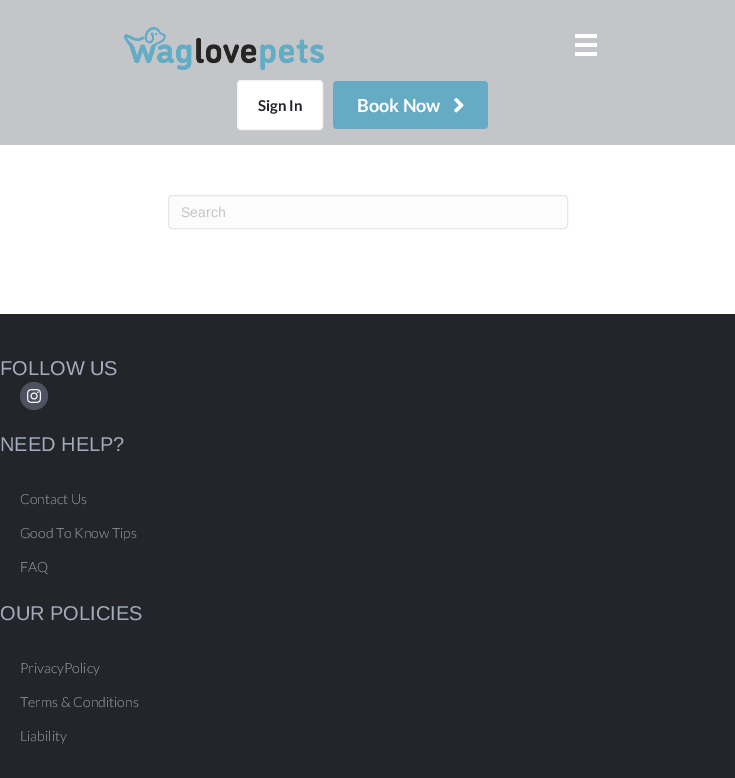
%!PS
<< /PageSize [735 778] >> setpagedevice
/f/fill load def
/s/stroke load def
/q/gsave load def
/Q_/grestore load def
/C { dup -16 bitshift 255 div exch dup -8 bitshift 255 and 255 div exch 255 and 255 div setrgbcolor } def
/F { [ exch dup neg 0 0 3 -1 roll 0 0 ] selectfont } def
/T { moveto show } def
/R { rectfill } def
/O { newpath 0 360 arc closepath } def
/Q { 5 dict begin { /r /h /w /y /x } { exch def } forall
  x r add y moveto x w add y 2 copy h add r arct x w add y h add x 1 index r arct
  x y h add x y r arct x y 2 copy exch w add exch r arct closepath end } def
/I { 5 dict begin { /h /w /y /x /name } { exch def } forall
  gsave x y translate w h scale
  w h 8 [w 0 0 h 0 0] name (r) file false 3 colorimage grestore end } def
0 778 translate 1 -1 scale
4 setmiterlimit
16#FFFFFF C
0 0 735 778 R
16#C4C5C9 C
0 0 735 145 R
(1.rgb) 124 27 200 43 I
16#FFFFFF C
575 34 22 4 R
575 43 22 4 R
575 52 22 4 R
237.5 80.5 85 49 3.5 Q q f Q_
16#F3F3F3 C
s
/Lato-Bold 15 F
16#23252B C
(Sign In) 258 111 T
16#65ABC4 C
333 81 155 48 4 Q f
/Lato-Bold 18 F
16#FFFFFF C
(Book Now) 357 112 T
(2.rgb) 454 97 10 16 I
16#FCFCFC C
168.5 195.5 399 33 3.5 Q q f Q_
16#E6E6E6 C
s
/LiberationSans-Regular 14 F
16#C6C6C6 C
(Search) 181 217 T
16#23252B C
0 314 735 464 R
/LiberationSans-Regular 20 F
16#A4ACBC C
(FOLLOW US) 0 375 T
16#4E5260 C
34 396 14 O f
(3.rgb) 27 389 15 14 I
16#A4ACBC C
(NEED HELP?) 0 451 T
/Lato-Light 14 F
16#9CA3AF C
(Contact Us) 20 504 T
(Good To Know Tips) 20 538 T
(FAQ) 20 572 T
/LiberationSans-Regular 20 F
16#A4ACBC C
(OUR POLICIES) 0 620 T
/Lato-Light 14 F
16#9CA3AF C
(PrivacyPolicy) 20 673 T
(Terms & Conditions) 20 707 T
(Liability) 20 741 T
showpage
